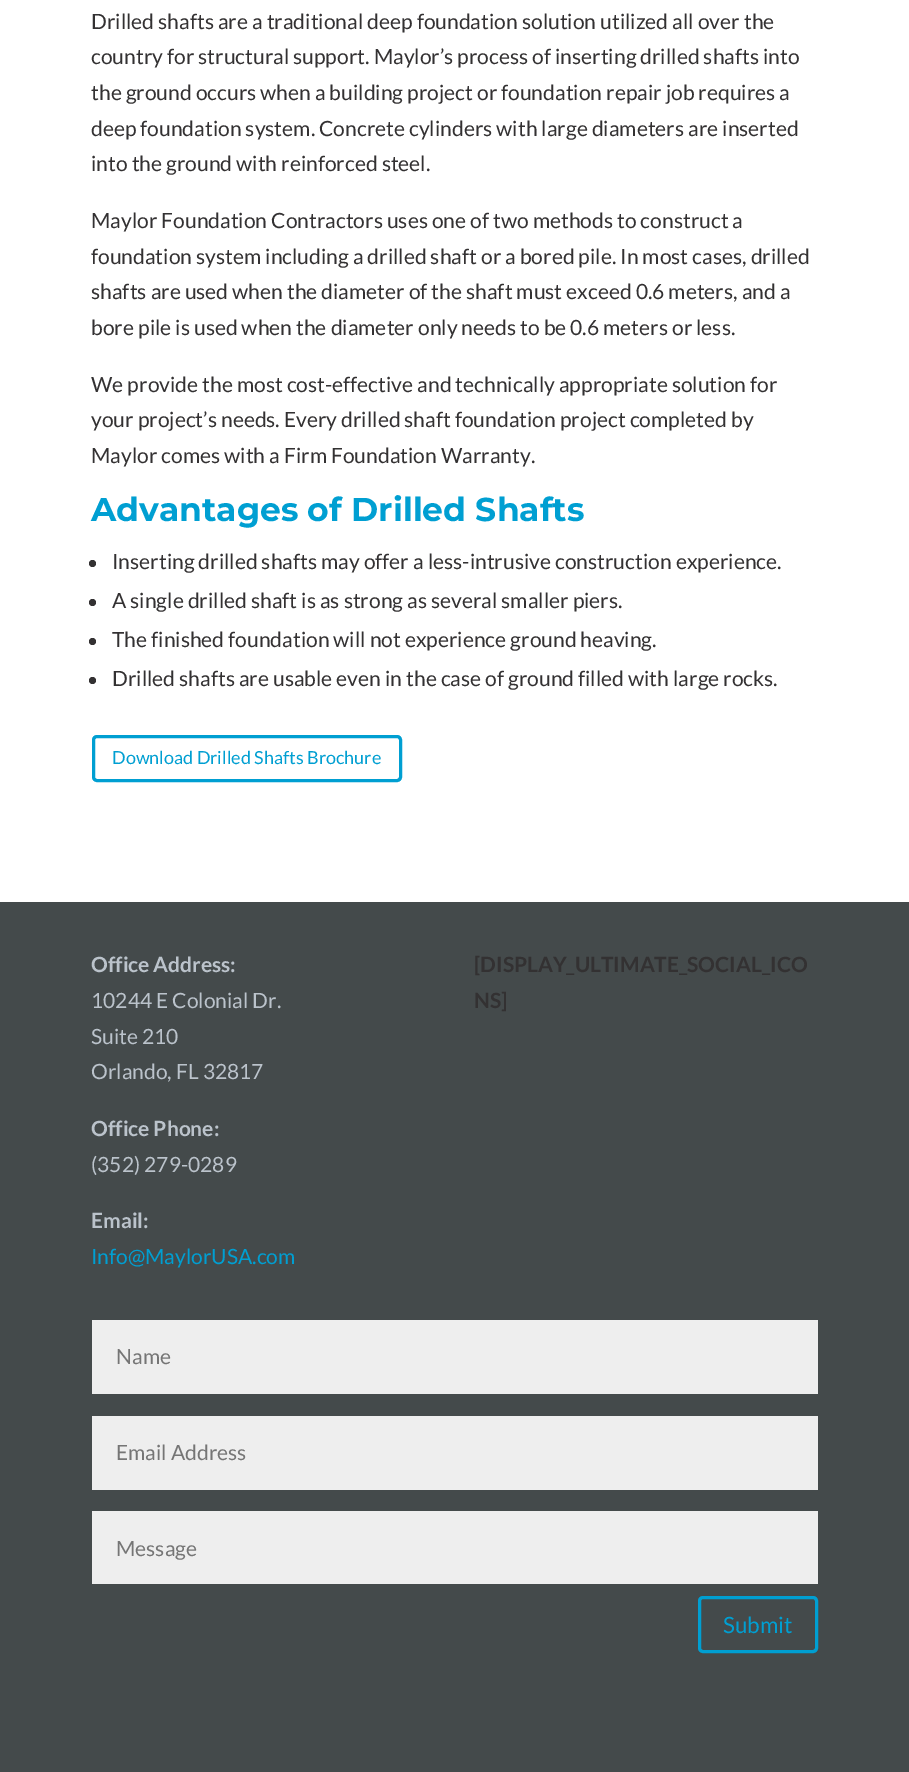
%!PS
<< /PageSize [909 1772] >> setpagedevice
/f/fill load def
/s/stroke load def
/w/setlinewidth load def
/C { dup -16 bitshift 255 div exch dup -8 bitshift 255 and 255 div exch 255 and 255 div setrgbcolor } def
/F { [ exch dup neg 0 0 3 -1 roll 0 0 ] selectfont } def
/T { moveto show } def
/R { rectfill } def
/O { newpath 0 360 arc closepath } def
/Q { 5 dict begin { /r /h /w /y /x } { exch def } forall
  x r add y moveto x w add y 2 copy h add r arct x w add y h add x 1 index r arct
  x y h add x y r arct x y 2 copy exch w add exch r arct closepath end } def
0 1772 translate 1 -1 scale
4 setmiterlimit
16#FFFFFF C
0 0 909 1772 R
/Lato-Regular 21 F
16#333132 C
(Drilled shafts are a traditional deep foundation solution utilized all over the) 91 29 T
(country for structural support. Maylor’s process of inserting drilled shafts into) 91 64 T
(the ground occurs when a building project or foundation repair job requires a) 91 100 T
(deep foundation system. Concrete cylinders with large diameters are inserted) 91 136 T
(into the ground with reinforced steel.) 91 171 T
(Maylor Foundation Contractors uses one of two methods to construct a) 91 228 T
(foundation system including a drilled shaft or a bored pile. In most cases, drilled) 91 264 T
(shafts are used when the diameter of the shaft must exceed 0.6 meters, and a) 91 299 T
(bore pile is used when the diameter only needs to be 0.6 meters or less.) 91 335 T
(We provide the most cost-effective and technically appropriate solution for) 91 392 T
(your project’s needs. Every drilled shaft foundation project completed by) 91 427 T
(Maylor comes with a Firm Foundation Warranty.) 91 463 T
/Montserrat-Thin 33 F
16#009FD2 C
(Advantages of Drilled Shafts) 91 521 T
16#333132 C
92.5 563.5 3.5 O f
/Lato-Regular 21 F
(Inserting drilled shafts may offer a less-intrusive construction experience.) 112 569 T
92.5 602.5 3.5 O f
(A single drilled shaft is as strong as several smaller piers.) 112 608 T
92.5 641.5 3.5 O f
(The finished foundation will not experience ground heaving.) 112 647 T
92.5 680.5 3.5 O f
(Drilled shafts are usable even in the case of ground filled with large rocks.) 112 686 T
16#009FD2 C
3 w
93.5 736.5 307 44 3.5 Q s
/Lato-Regular 18 F
(Download Drilled Shafts Brochure) 112 764 T
16#444A4B C
0 902 909 870 R
/Lato-Bold 21 F
16#BBC3CB C
(Office Address:) 91 972 T
/Lato-Regular 21 F
(10244 E Colonial Dr.) 91 1008 T
(Suite 210) 91 1044 T
(Orlando, FL 32817) 91 1079 T
/Lato-Bold 21 F
(Office Phone:) 91 1136 T
/Lato-Regular 21 F
(\(352\) 279-0289) 91 1172 T
/Lato-Bold 21 F
(Email:) 91 1228 T
/Lato-Regular 21 F
16#009FD2 C
(Info@MaylorUSA.com) 91 1264 T
/Lato-Bold 21 F
16#333132 C
([DISPLAY_ULTIMATE_SOCIAL_ICO) 474 972 T
(NS]) 474 1008 T
16#EEEEEE C
92 1320 726 74 R
/Lato-Regular 21 F
16#757575 C
(Name) 116 1364 T
16#EEEEEE C
92 1416 726 74 R
16#757575 C
(Email Address) 116 1460 T
16#EEEEEE C
92 1511 726 73 R
16#757575 C
(Message) 116 1556 T
16#009FD2 C
699.5 1597.5 117 54 3.5 Q s
/Lato-Regular 22.5 F
(Submit) 723 1633 T
showpage
